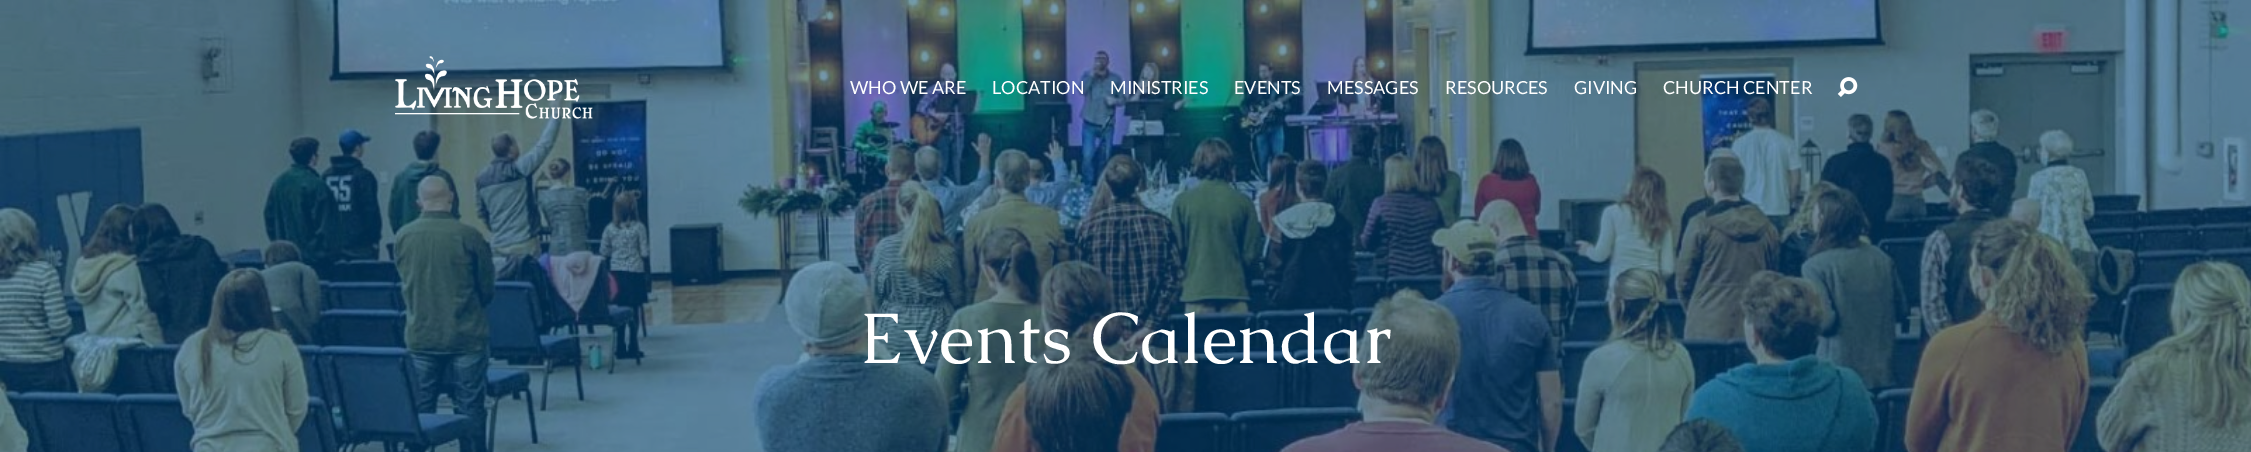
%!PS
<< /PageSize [2251 452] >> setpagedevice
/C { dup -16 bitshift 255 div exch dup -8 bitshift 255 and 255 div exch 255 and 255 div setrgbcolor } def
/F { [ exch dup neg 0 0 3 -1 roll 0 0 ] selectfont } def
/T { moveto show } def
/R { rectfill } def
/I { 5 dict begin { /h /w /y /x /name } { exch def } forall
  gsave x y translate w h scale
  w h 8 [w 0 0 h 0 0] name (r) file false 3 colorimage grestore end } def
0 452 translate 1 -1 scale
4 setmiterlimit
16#004B82 C
0 0 2251 452 R
(3.rgb) 0 0 2251 452 I
(1.rgb) 395 56 198 63 I
/Lato-Regular 18 F
16#FFFFFF C
(WHO WE ARE) 850 94 T
(LOCATION) 992 94 T
(MINISTRIES) 1110 94 T
(EVENTS) 1234 94 T
(MESSAGES) 1327 94 T
(RESOURCES) 1445 94 T
(GIVING) 1574 94 T
(CHURCH CENTER) 1663 94 T
(2.rgb) 1837 77 21 20 I
/Caudex-Regular 72 F
(Events Calendar) 859 363 T
showpage
